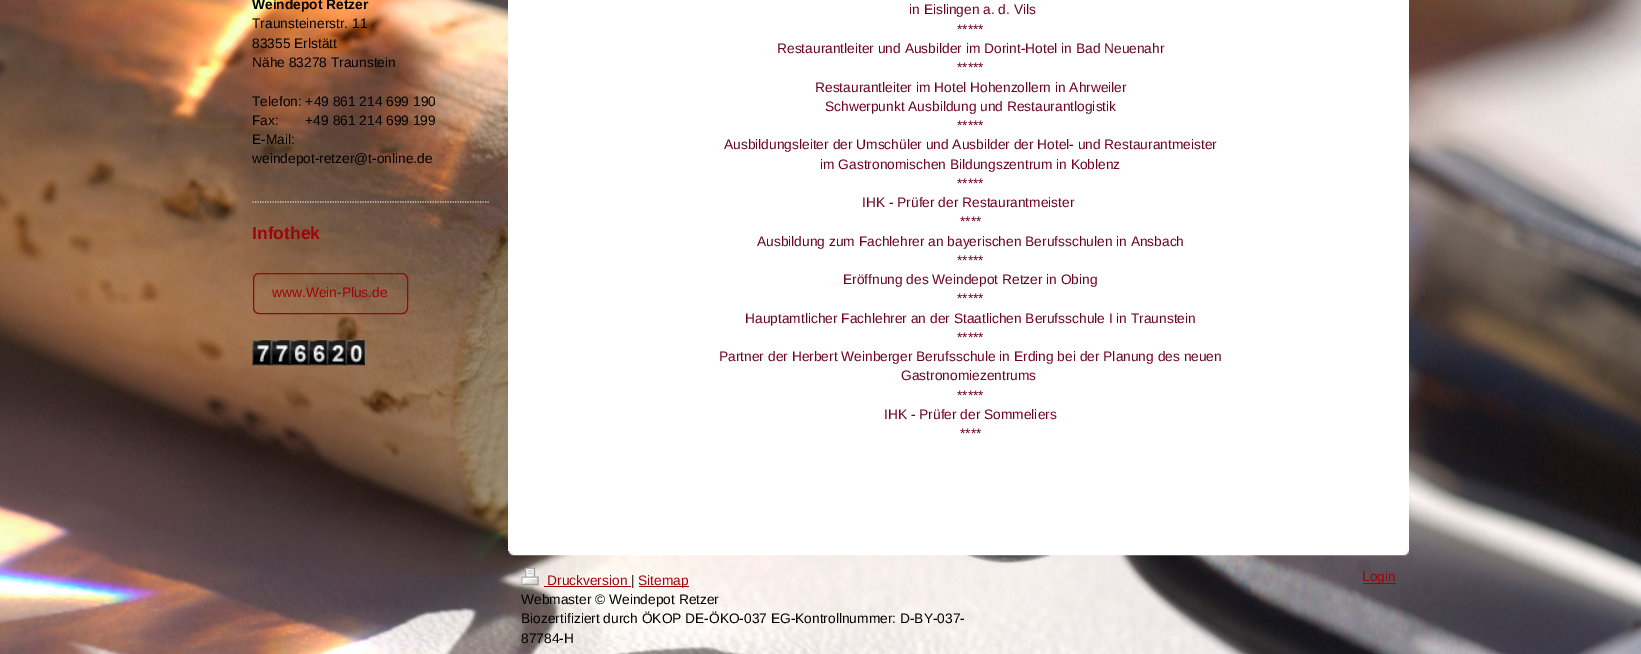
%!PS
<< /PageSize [1641 654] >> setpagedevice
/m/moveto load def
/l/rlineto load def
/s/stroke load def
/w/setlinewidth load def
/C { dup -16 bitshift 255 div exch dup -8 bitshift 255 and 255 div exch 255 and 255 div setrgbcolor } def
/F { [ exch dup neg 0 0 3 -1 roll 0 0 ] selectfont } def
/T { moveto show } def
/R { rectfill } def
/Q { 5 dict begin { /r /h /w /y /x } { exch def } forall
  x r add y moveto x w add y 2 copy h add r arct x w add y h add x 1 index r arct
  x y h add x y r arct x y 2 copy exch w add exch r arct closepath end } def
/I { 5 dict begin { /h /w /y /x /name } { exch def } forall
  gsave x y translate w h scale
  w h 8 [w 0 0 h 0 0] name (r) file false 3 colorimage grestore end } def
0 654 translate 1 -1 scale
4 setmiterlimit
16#FFFFFF C
0 0 1641 654 R
(1.rgb) 0 0 1641 654 I
508 0 901 551 R
/LiberationSans-Bold 13.75 F
16#000000 C
(Weindepot Retzer) 252 9 T
/LiberationSans-Regular 13.75 F
(Traunsteinerstr. 11) 252 28 T
(83355 Erlstätt) 252 48 T
(Nähe 83278 Traunstein) 252 67 T
(Telefon: +49 861 214 699 190) 252 106 T
(Fax:       +49 861 214 699 199) 252 125 T
(E-Mail:) 252 144 T
(weindepot-retzer@t-online.de) 252 163 T
16#CCCCCC C
1.2 w
[1.25 1.25] 0 setdash
252.5 202 m 237.5 0 l s
/LiberationSans-Bold 17.5 F
16#9F0408 C
(Infothek) 252 239 T
1 w
[] 0 setdash
253.5 273.5 154 40 5.5 Q s
/LiberationSans-Regular 13.75 F
(www.Wein-Plus.de) 272 297 T
(2.rgb) 252 340 20 26 I
(3.rgb) 271 340 19 26 I
(4.rgb) 290 340 19 26 I
(5.rgb) 308 340 20 26 I
(6.rgb) 327 340 20 26 I
(7.rgb) 346 340 19 26 I
16#6C0220 C
(in Eislingen a. d. Vils) 909 14 T
(*****) 957 34 T
(Restaurantleiter und Ausbilder im Dorint-Hotel in Bad Neuenahr) 777 53 T
(*****) 957 72 T
(Restaurantleiter im Hotel Hohenzollern in Ahrweiler) 815 92 T
(Schwerpunkt Ausbildung und Restaurantlogistik) 825 111 T
(*****) 957 130 T
(Ausbildungsleiter der Umschüler und Ausbilder der Hotel- und Restaurantmeister) 724 149 T
(im Gastronomischen Bildungszentrum in Koblenz) 820 169 T
(*****) 957 188 T
(IHK - Prüfer der Restaurantmeister) 862 207 T
(****) 960 226 T
(Ausbildung zum Fachlehrer an bayerischen Berufsschulen in Ansbach) 757 246 T
(*****) 957 265 T
(Eröffnung des Weindepot Retzer in Obing) 843 284 T
(*****) 957 303 T
(Hauptamtlicher Fachlehrer an der Staatlichen Berufsschule I in Traunstein) 745 323 T
(*****) 957 342 T
(Partner der Herbert Weinberger Berufsschule in Erding bei der Planung des neuen) 719 361 T
(Gastronomiezentrums) 901 380 T
(*****) 957 400 T
(IHK - Prüfer der Sommeliers) 884 419 T
(****) 960 438 T
(8.rgb) 508 551 901 5 I
(9.rgb) 521 567 18 19 I
16#9F0408 C
(Druckversion) 547 585 T
544 586 87 1 R
16#000000 C
(|) 631 585 T
16#9F0408 C
639 586 50 1 R
(Sitemap) 638 585 T
16#000000 C
(Webmaster © Weindepot Retzer) 521 604 T
(Biozertifiziert durch ÖKOP DE-ÖKO-037 EG-Kontrollnummer: D-BY-037-) 521 623 T
(87784-H) 521 643 T
16#9F0408 C
1363 583 33 1 R
(Login) 1362 581 T
showpage
